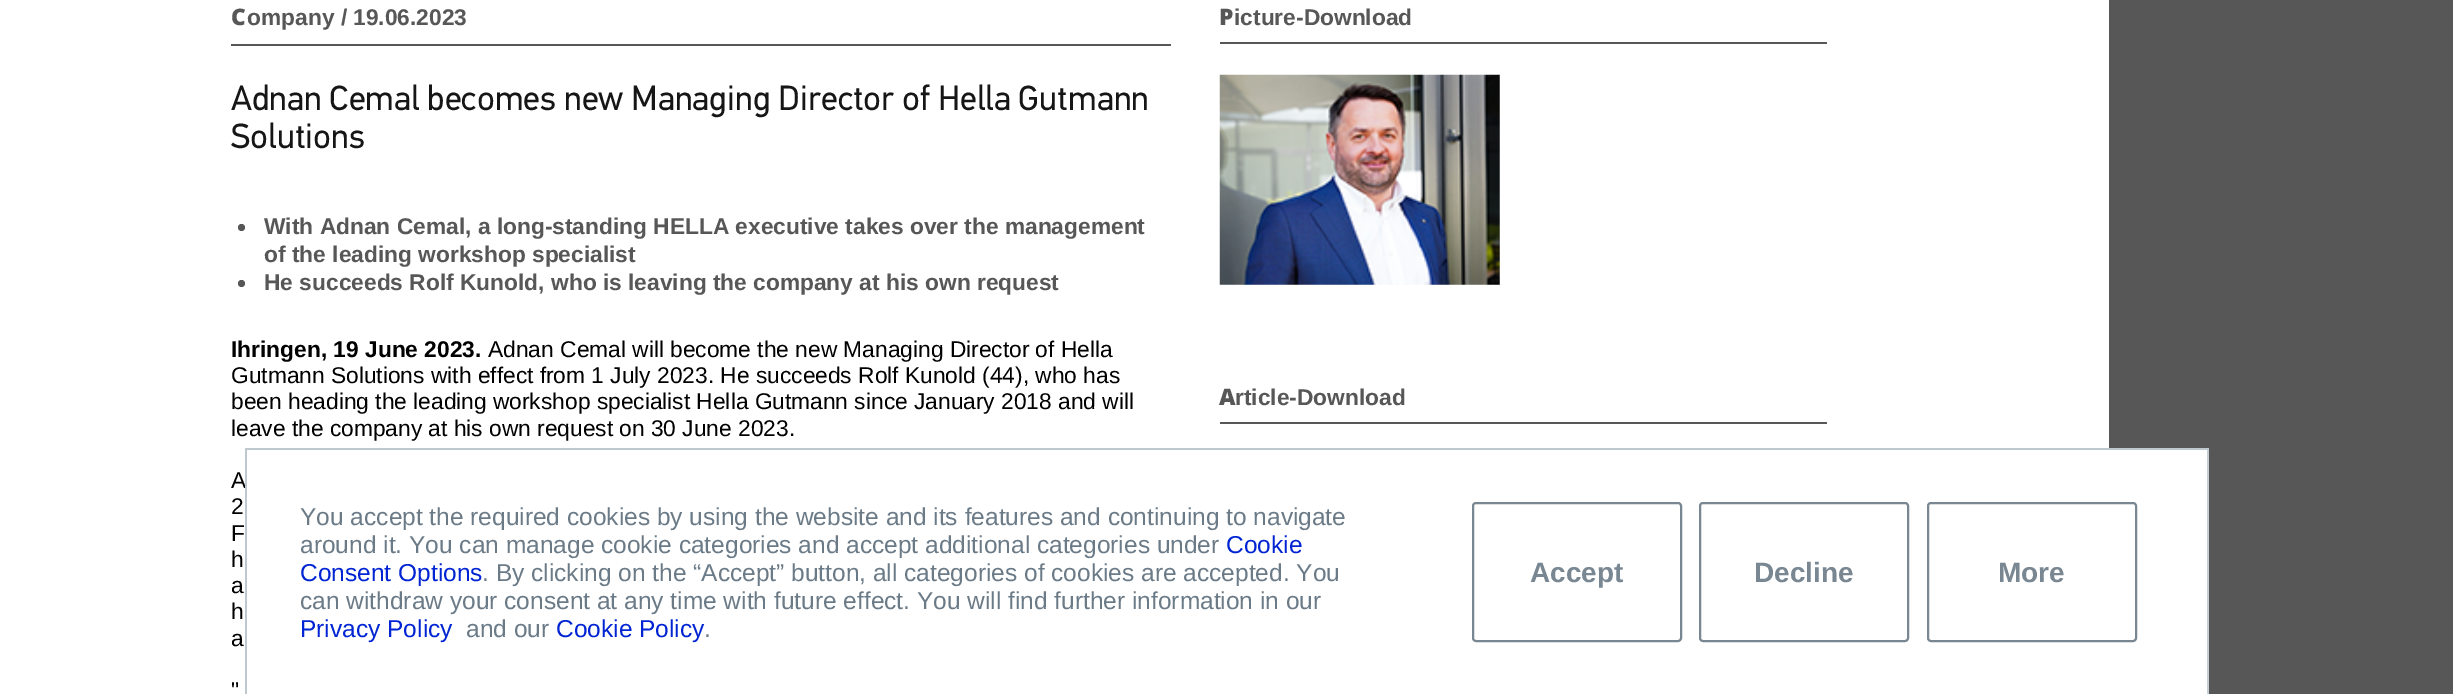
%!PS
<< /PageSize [2453 694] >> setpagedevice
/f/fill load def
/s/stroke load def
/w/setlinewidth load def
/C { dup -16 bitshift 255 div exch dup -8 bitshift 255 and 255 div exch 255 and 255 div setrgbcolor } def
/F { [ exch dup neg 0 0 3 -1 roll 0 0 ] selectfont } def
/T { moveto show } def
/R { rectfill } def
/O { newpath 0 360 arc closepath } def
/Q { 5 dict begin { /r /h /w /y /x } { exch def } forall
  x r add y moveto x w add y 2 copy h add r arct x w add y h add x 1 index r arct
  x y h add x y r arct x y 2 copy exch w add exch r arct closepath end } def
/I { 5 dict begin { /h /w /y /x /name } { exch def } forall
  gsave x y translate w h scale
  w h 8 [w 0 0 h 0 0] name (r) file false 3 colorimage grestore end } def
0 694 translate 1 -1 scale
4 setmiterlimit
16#575757 C
0 0 2453 694 R
16#FFFFFF C
0 0 2109 694 R
16#575757 C
231 44 940 2 R
/NotoSans-Black 22.75 F
(C) 231 25 T
/LiberationSans-Bold 22.75 F
(ompany / 19.06.2023) 247 25 T
/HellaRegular-Regular 35.05 F
16#171616 C
(Adnan Cemal becomes new Managing Director of Hella Gutmann) 231 110 T
(Solutions) 231 148 T
16#575757 C
241.5 227.5 3.5 O f
/LiberationSans-Bold 22.75 F
(With Adnan Cemal, a long-standing HELLA executive takes over the management) 264 234 T
(of the leading workshop specialist) 264 262 T
241.5 283.5 3.5 O f
(He succeeds Rolf Kunold, who is leaving the company at his own request) 264 290 T
16#000000 C
(Ihringen, 19 June 2023.) 231 357 T
/LiberationSans-Regular 22.75 F
(Adnan Cemal will become the new Managing Director of Hella) 488 357 T
(Gutmann Solutions with effect from 1 July 2023. He succeeds Rolf Kunold \(44\), who has) 231 383 T
(been heading the leading workshop specialist Hella Gutmann since January 2018 and will) 231 409 T
(leave the company at his own request on 30 June 2023.) 231 436 T
(A) 231 488 T
(2) 231 514 T
(F) 231 541 T
(h) 231 567 T
(a) 231 593 T
(h) 231 619 T
(a) 231 646 T
(") 231 698 T
16#575757 C
1220 42 607 2 R
/NotoSans-Black 22.75 F
(P) 1219 25 T
/LiberationSans-Bold 22.75 F
(icture-Download) 1234 25 T
(1.rgb) 1219 74 281 211 I
1220 422 607 2 R
/NotoSans-Black 22.75 F
(A) 1219 405 T
/LiberationSans-Bold 22.75 F
(rticle-Download) 1235 405 T
16#FFFFFF C
2109 450 98 244 R
16#BDC9CF C
245 448 1964 2 R
245 450 2 244 R
/LiberationSans-Regular 24.5 F
16#6A7A86 C
(You accept the required cookies by using the website and its features and continuing to navigate) 300 525 T
(around it. You can manage cookie categories and accept additional categories under) 300 553 T
16#0024D3 C
(Cookie) 1226 553 T
(Consent Options) 300 581 T
16#6A7A86 C
(. By clicking on the “Accept” button, all categories of cookies are accepted. You) 482 581 T
(can withdraw your consent at any time with future effect. You will find further information in our) 300 609 T
16#0024D3 C
(Privacy Policy) 300 637 T
16#6A7A86 C
(and our) 466 637 T
16#0024D3 C
(Cookie Policy) 556 637 T
16#6A7A86 C
(.) 704 637 T
16#C4CED4 C
2207 450 2 244 R
16#798792 C
2 w
1473 503 208 138 3 Q s
/LiberationSans-Bold 28 F
(Accept) 1530 582 T
1700 503 208 138 3 Q s
(Decline) 1754 582 T
1928 503 208 138 3 Q s
(More) 1998 582 T
showpage
